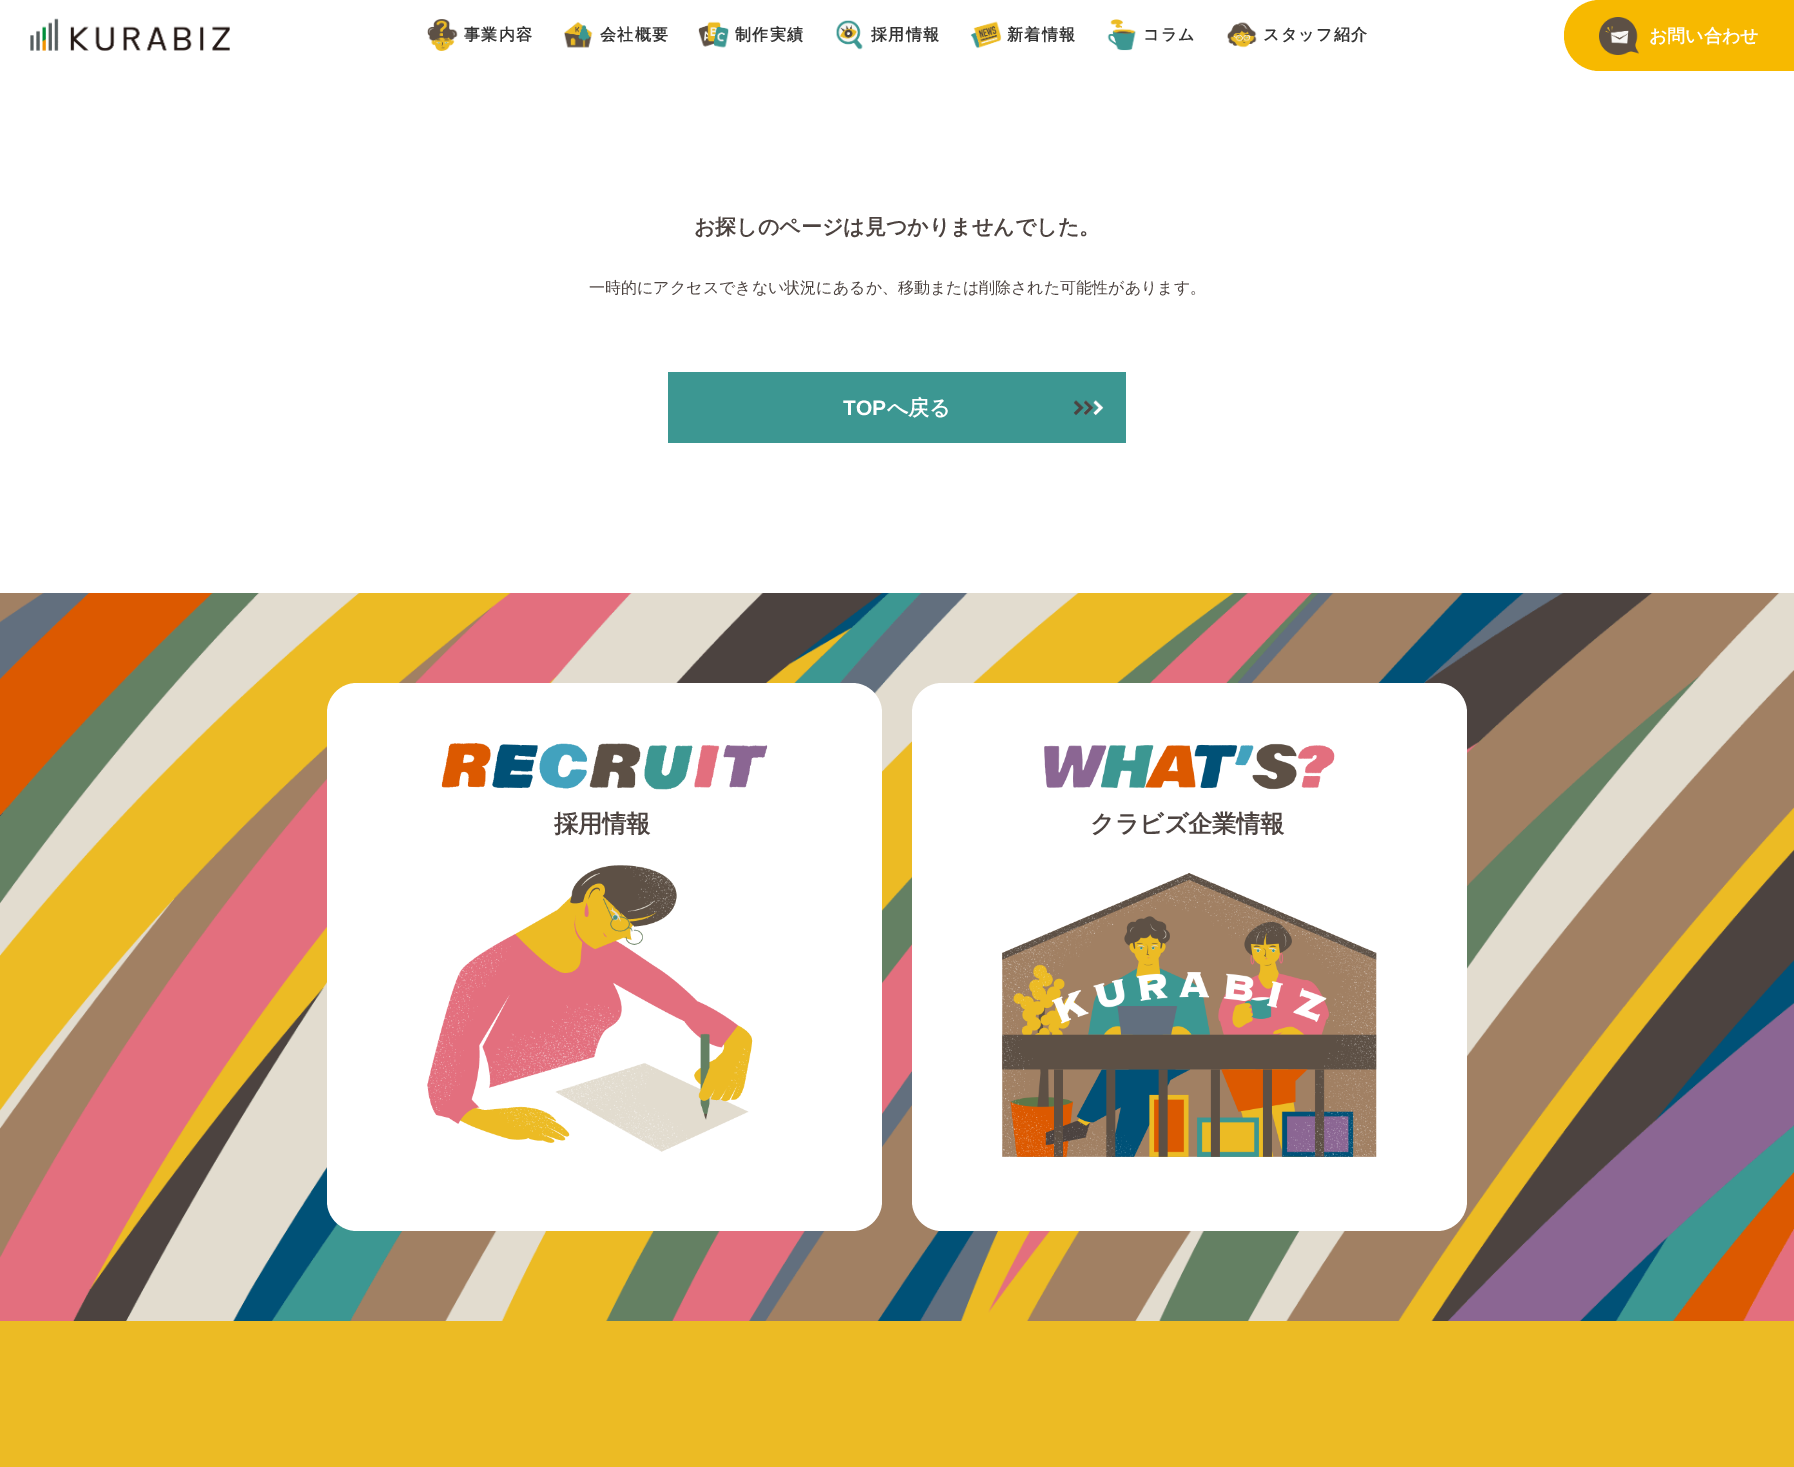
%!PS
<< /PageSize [1794 1467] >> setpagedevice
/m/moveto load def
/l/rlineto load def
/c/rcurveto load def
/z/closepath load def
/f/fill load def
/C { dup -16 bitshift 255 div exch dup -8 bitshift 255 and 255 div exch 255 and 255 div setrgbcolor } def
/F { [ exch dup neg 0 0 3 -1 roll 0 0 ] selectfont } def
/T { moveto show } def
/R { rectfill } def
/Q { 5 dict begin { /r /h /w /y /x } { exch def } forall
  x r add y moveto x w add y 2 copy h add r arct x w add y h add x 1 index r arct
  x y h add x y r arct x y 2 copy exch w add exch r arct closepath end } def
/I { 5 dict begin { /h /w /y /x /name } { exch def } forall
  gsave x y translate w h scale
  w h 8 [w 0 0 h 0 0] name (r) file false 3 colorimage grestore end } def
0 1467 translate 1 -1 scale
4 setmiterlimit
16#FFFFFF C
0 0 1794 1467 R
(1.rgb) 30 18 200 33 I
(2.rgb) 427 19 31 32 I
/WenQuanYiZenHei-Bold 16 F
16#333333 C
464 40 m 1.25 0 (事業内容) ashow
(3.rgb) 564 22 29 26 I
600 40 m 1.25 0 (会社概要) ashow
(4.rgb) 698 21 31 27 I
735 40 m 1.25 0 (制作実績) ashow
(5.rgb) 836 20 27 30 I
871 40 m 1.25 0 (採用情報) ashow
(6.rgb) 970 21 32 28 I
1007 40 m 1.25 0 (新着情報) ashow
(7.rgb) 1107 19 29 32 I
1143 40 m 1.25 0 (コラム) ashow
(8.rgb) 1227 22 30 26 I
1263 40 m 1.25 0 (スタッフ紹介) ashow
16#F7B900 C
1599.5 0 m 194.5 0 l 0 71 l -194.5 0 l -19.5 0 -35.5 -16 -35.5 -35.5 c 0 -19.5 16 -35.5 35.5 -35.5 c z f
(9.rgb) 1599 17 40 38 I
/WenQuanYiZenHei-Bold 18 F
16#FFFFFF C
(お問い合わせ) 1649 42 T
/WenQuanYiZenHei-Bold 21 F
16#4C4340 C
(お探しのページは見つかりませんでした。) 694 234 T
/WenQuanYiZenHei-Medium 16 F
(一時的にアクセスできない状況にあるか、移動または削除された可能性があります。) 589 293 T
16#3C9792 C
668 372 458 71 R
/LiberationSans-Bold 21 F
16#FFFFFF C
(TOP) 843 415 T
/WenQuanYiZenHei-Bold 21 F
(へ戻る) 887 415 T
(10.rgb) 1073 400 31 16 I
(11.rgb) 0 593 1794 728 I
327 683 555 548 30 Q f
(12.rgb) 441 743 327 47 I
/WenQuanYiZenHei-Bold 24.25 F
16#4C4340 C
554 832 m -.25 0 (採用情報) ashow
(13.rgb) 427 865 326 287 I
16#FFFFFF C
912 683 555 548 30 Q f
(14.rgb) 1044 743 291 47 I
16#4C4340 C
1090 832 m -.25 0 (クラビズ企業情報) ashow
(15.rgb) 1002 873 375 284 I
16#ECBB24 C
0 1321 1794 146 R
showpage
